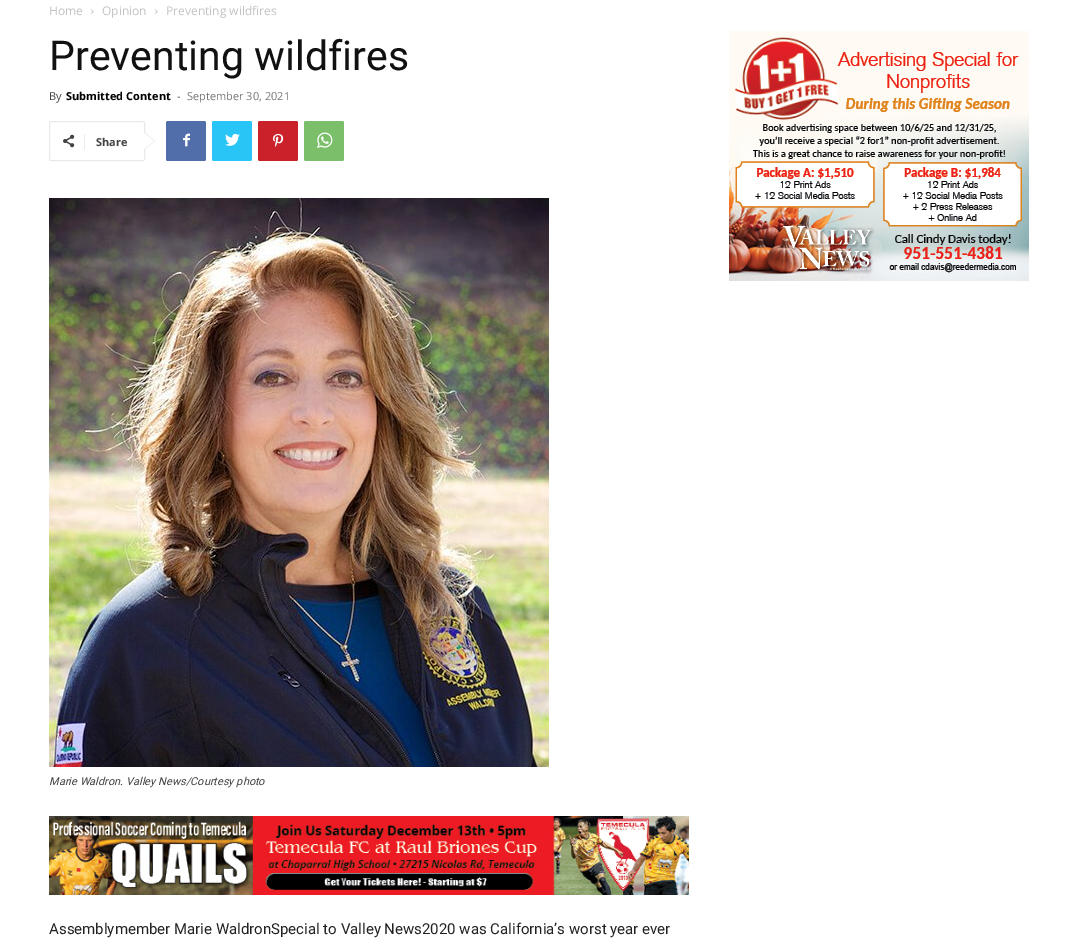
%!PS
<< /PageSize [1078 949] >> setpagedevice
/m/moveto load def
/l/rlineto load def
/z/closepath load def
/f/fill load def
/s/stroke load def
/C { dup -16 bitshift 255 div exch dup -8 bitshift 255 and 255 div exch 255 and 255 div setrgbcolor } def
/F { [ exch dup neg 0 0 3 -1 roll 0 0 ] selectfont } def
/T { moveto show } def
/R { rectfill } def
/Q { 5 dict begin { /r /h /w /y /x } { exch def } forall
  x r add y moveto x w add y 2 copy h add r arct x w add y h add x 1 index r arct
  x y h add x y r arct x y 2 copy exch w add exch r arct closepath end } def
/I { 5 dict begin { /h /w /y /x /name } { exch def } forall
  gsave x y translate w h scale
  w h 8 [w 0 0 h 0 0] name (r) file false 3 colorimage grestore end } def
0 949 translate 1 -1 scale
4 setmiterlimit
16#FFFFFF C
0 0 1078 949 R
/OpenSans-Regular 12 F
16#C3C3C3 C
(Home) 49 15 T
(1.rgb) 91 9 3 5 I
(Opinion) 102 15 T
(1.rgb) 155 9 3 5 I
(Preventing wildfires) 166 15 T
/Roboto-Regular 41 F
16#111111 C
(Preventing wildfires) 49 70 T
/OpenSans-Regular 11 F
16#444444 C
(By) 49 100 T
/OpenSans-Bold 11 F
16#000000 C
(Submitted Content) 66 100 T
/OpenSans-Regular 11 F
16#444444 C
(-) 177 100 T
16#767676 C
(September 30, 2021) 187 100 T
16#E9E9E9 C
49.5 121.5 95 39 1.5 Q s
144 150 m 0 -18 l 11 9 l z f
(2.rgb) 63 134 12 14 I
16#EBEBEB C
84 134 1 16 R
/OpenSans-Bold 11 F
16#444444 C
(Share) 96 146 T
16#FFFFFF C
144 149 m 0 -16 l 10 8 l z f
16#516EAB C
166 121 40 40 2 Q f
(3.rgb) 183 133 7 14 I
16#29C5F6 C
212 121 40 40 2 Q f
(4.rgb) 225 133 15 13 I
16#CA212A C
258 121 40 40 2 Q f
(5.rgb) 273 133 11 14 I
16#7BBF6A C
304 121 40 40 2 Q f
(6.rgb) 317 132 16 16 I
(7.rgb) 49 198 500 569 I
/Roboto-Italic 11 F
16#444444 C
(Marie Waldron. Valley News/Courtesy photo) 49 785 T
(8.rgb) 49 816 640 79 I
/Roboto-Regular 15 F
16#222222 C
(Assemblymember Marie WaldronSpecial to Valley News2020 was California’s worst year ever) 49 934 T
(9.rgb) 729 31 300 250 I
showpage
